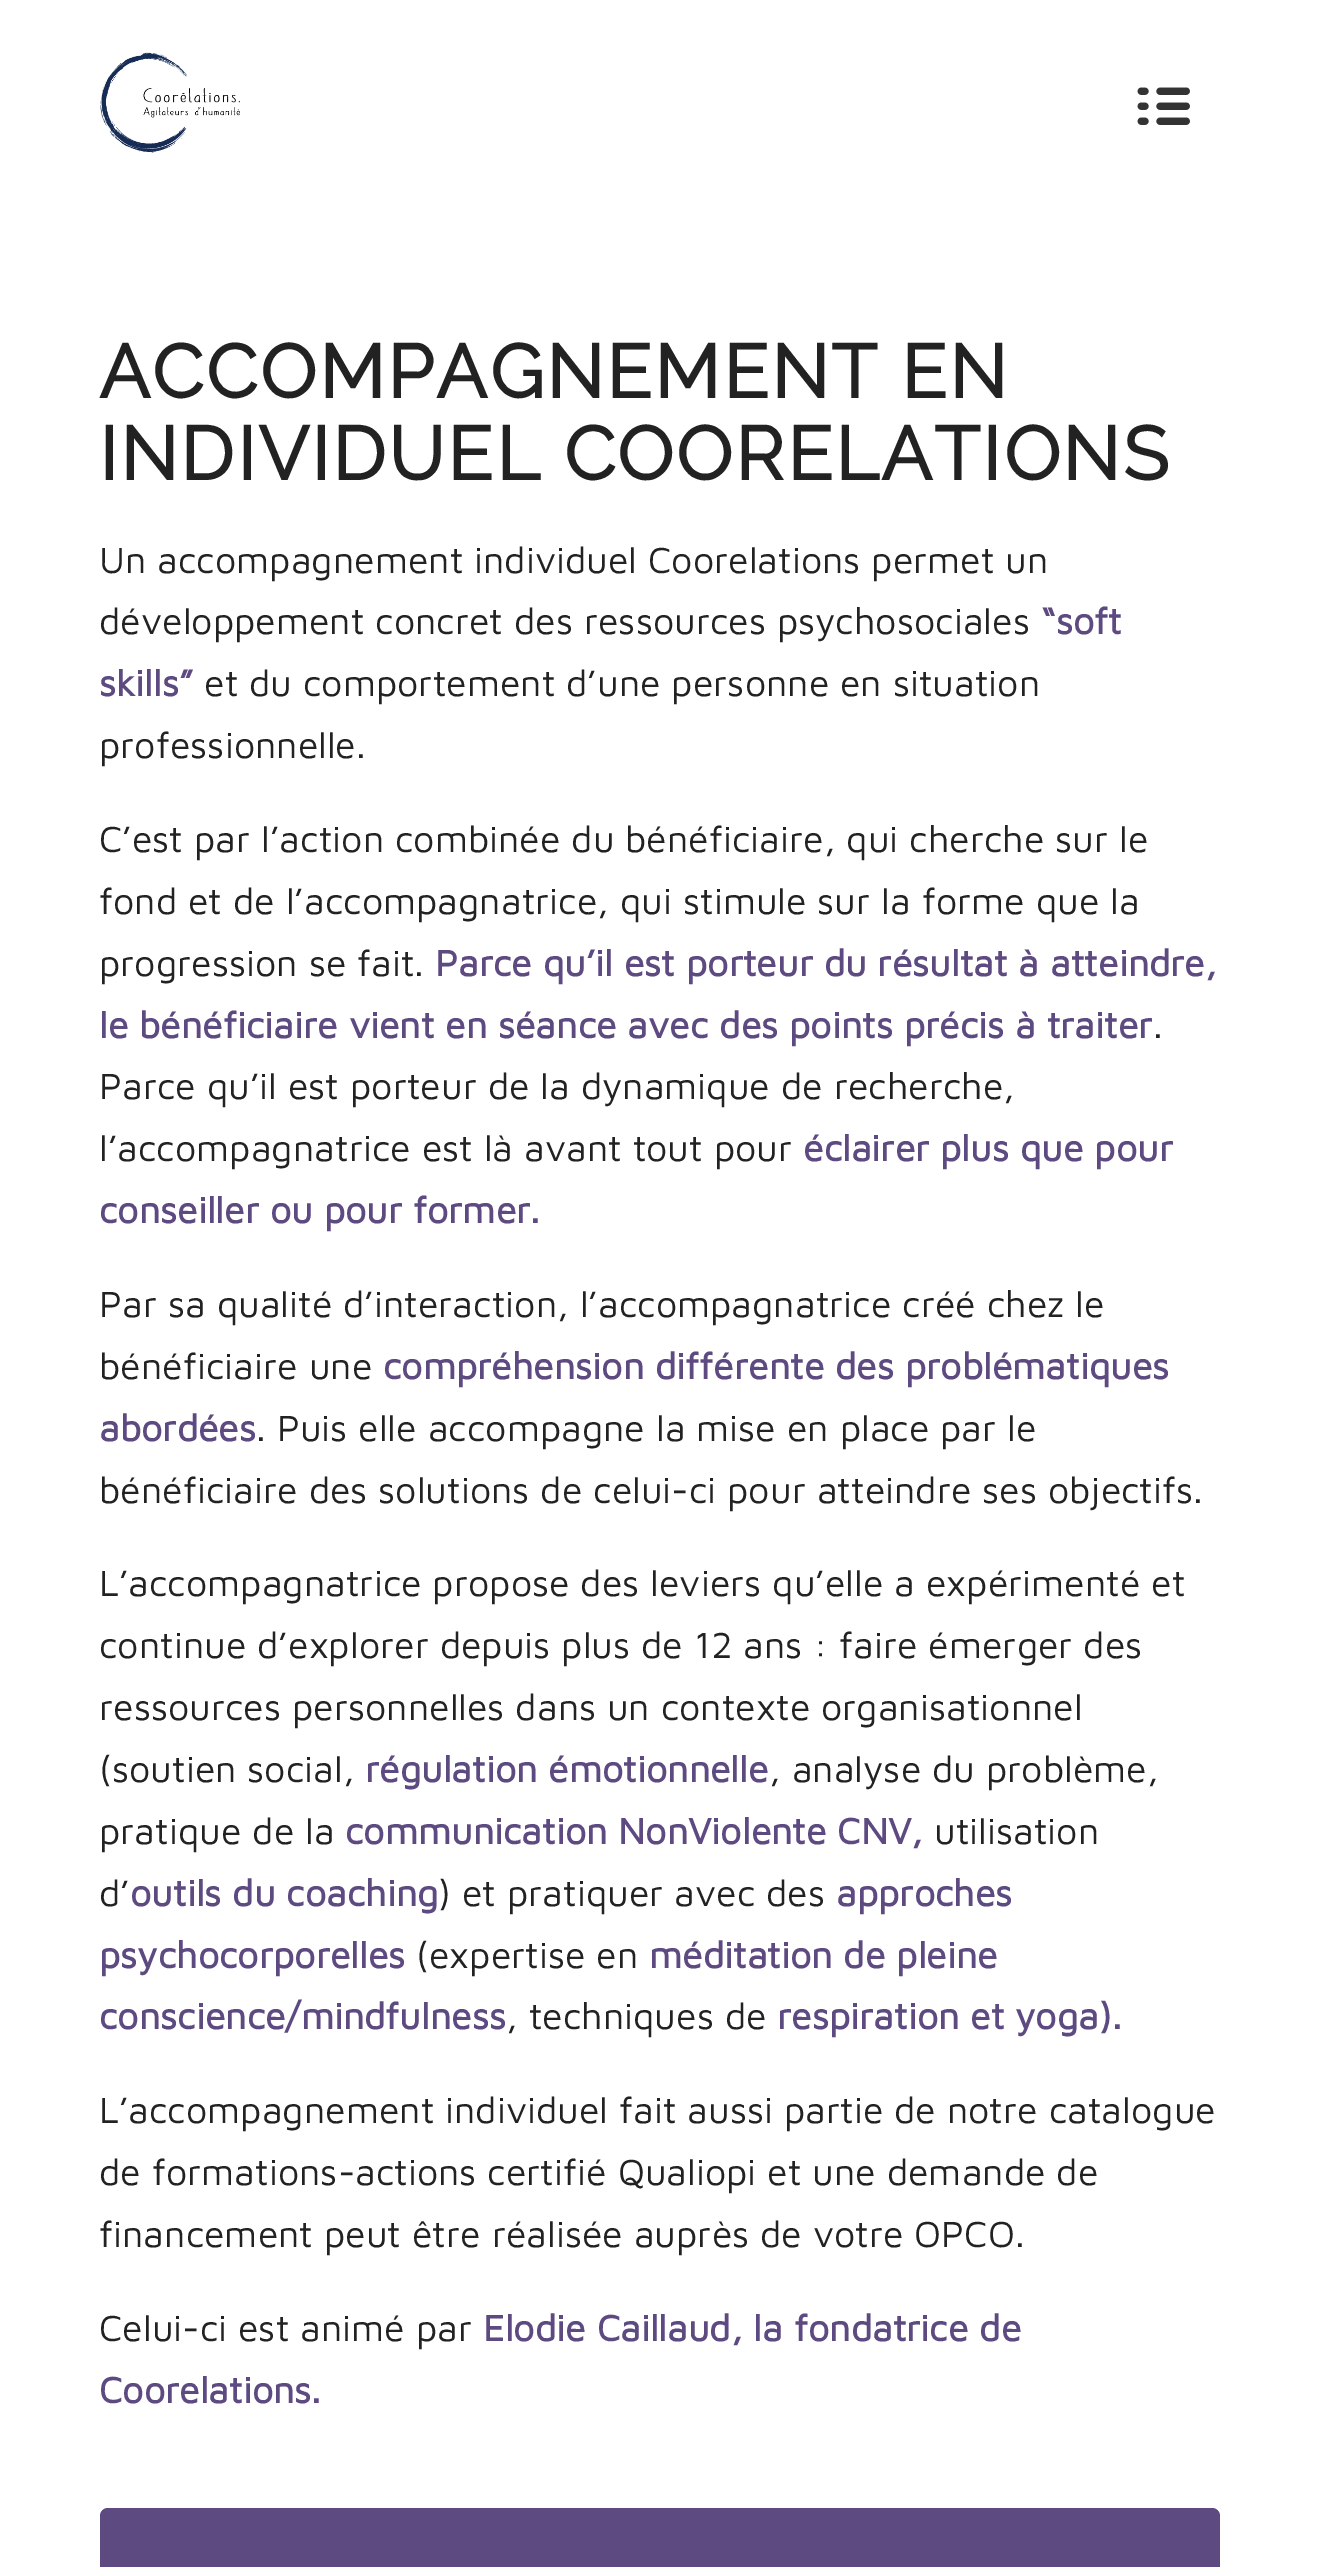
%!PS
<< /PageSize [1319 2567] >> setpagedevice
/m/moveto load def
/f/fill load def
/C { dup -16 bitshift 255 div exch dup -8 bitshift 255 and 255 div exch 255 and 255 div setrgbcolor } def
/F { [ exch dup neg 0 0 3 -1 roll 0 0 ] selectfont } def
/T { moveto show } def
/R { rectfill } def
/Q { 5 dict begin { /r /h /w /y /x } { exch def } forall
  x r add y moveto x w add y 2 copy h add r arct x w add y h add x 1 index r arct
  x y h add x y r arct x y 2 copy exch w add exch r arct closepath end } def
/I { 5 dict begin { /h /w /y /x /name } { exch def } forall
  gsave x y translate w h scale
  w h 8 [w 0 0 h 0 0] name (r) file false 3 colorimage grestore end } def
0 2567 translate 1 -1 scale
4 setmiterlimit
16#FFFFFF C
0 0 1319 2567 R
(1.rgb) 100 52 140 101 I
(2.rgb) 1137 87 53 38 I
/Raleway-Bold 75 F
16#222222 C
99 398 m 2.5 0 (ACCOMPAGNEMENT EN) ashow
99 480 m 2.5 0 (INDIVIDUEL COORELATIONS) ashow
/MavenPro-Regular 37.5 F
(Un accompagnement individuel Coorelations permet un) 99 573 T
(développement concret des ressources psychosociales) 99 634 T
/MavenPro-Bold 37.5 F
16#5D4A81 C
(“soft) 1041 634 T
(skills”) 99 696 T
/MavenPro-Regular 37.5 F
16#222222 C
(et du comportement d’une personne en situation) 204 696 T
(professionnelle.) 99 758 T
(C’est par l’action combinée du bénéficiaire, qui cherche sur le) 99 852 T
(fond et de l’accompagnatrice, qui stimule sur la forme que la) 99 914 T
(progression se fait.) 99 976 T
/MavenPro-Bold 37.5 F
16#5D4A81 C
(Parce qu’il est porteur du résultat à atteindre,) 435 976 T
(le bénéficiaire vient en séance avec des points précis à traiter) 99 1038 T
/MavenPro-Regular 37.5 F
16#222222 C
(.) 1153 1038 T
(Parce qu’il est porteur de la dynamique de recherche,) 99 1099 T
(l’accompagnatrice est là avant tout pour) 99 1161 T
/MavenPro-Bold 37.5 F
16#5D4A81 C
(éclairer plus que pour) 803 1161 T
(conseiller ou pour former.) 99 1223 T
/MavenPro-Regular 37.5 F
16#222222 C
(Par sa qualité d’interaction, l’accompagnatrice créé chez le) 99 1317 T
(bénéficiaire une) 99 1379 T
/MavenPro-Bold 37.5 F
16#5D4A81 C
(compréhension différente des problématiques) 383 1379 T
(abordées) 99 1441 T
/MavenPro-Regular 37.5 F
16#222222 C
(. Puis elle accompagne la mise en place par le) 256 1441 T
(bénéficiaire des solutions de celui-ci pour atteindre ses objectifs.) 99 1503 T
(L’accompagnatrice propose des leviers qu’elle a expérimenté et) 99 1596 T
(continue d’explorer depuis plus de 12 ans : faire émerger des) 99 1658 T
(ressources personnelles dans un contexte organisationnel) 99 1720 T
(\(soutien social,) 99 1782 T
/MavenPro-Bold 37.5 F
16#5D4A81 C
(régulation émotionnelle) 365 1782 T
/MavenPro-Regular 37.5 F
16#222222 C
(, analyse du problème,) 769 1782 T
(pratique de la) 99 1844 T
/MavenPro-Bold 37.5 F
16#5D4A81 C
(communication NonViolente CNV,) 345 1844 T
/MavenPro-Regular 37.5 F
16#222222 C
(utilisation) 934 1844 T
(d’) 99 1906 T
/MavenPro-Bold 37.5 F
16#5D4A81 C
(outils du coaching) 130 1906 T
/MavenPro-Regular 37.5 F
16#222222 C
(\) et pratiquer avec des) 438 1906 T
/MavenPro-Bold 37.5 F
16#5D4A81 C
(approches) 836 1906 T
(psychocorporelles) 99 1968 T
/MavenPro-Regular 37.5 F
16#222222 C
(\(expertise en) 416 1968 T
/MavenPro-Bold 37.5 F
16#5D4A81 C
(méditation de pleine) 649 1968 T
(conscience/mindfulness) 99 2029 T
/MavenPro-Regular 37.5 F
16#222222 C
(, techniques de) 506 2029 T
/MavenPro-Bold 37.5 F
16#5D4A81 C
(respiration et yoga\).) 777 2029 T
/MavenPro-Regular 37.5 F
16#222222 C
(L’accompagnement individuel fait aussi partie de notre catalogue) 99 2123 T
(de formations-actions certifié Qualiopi et une demande de) 99 2185 T
(financement peut être réalisée auprès de votre OPCO.) 99 2247 T
(Celui-ci est animé par) 99 2341 T
/MavenPro-Bold 37.5 F
16#5D4A81 C
(Elodie Caillaud, la fondatrice de) 483 2341 T
(Coorelations.) 99 2403 T
100 2508 1120 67 8 Q f
showpage
